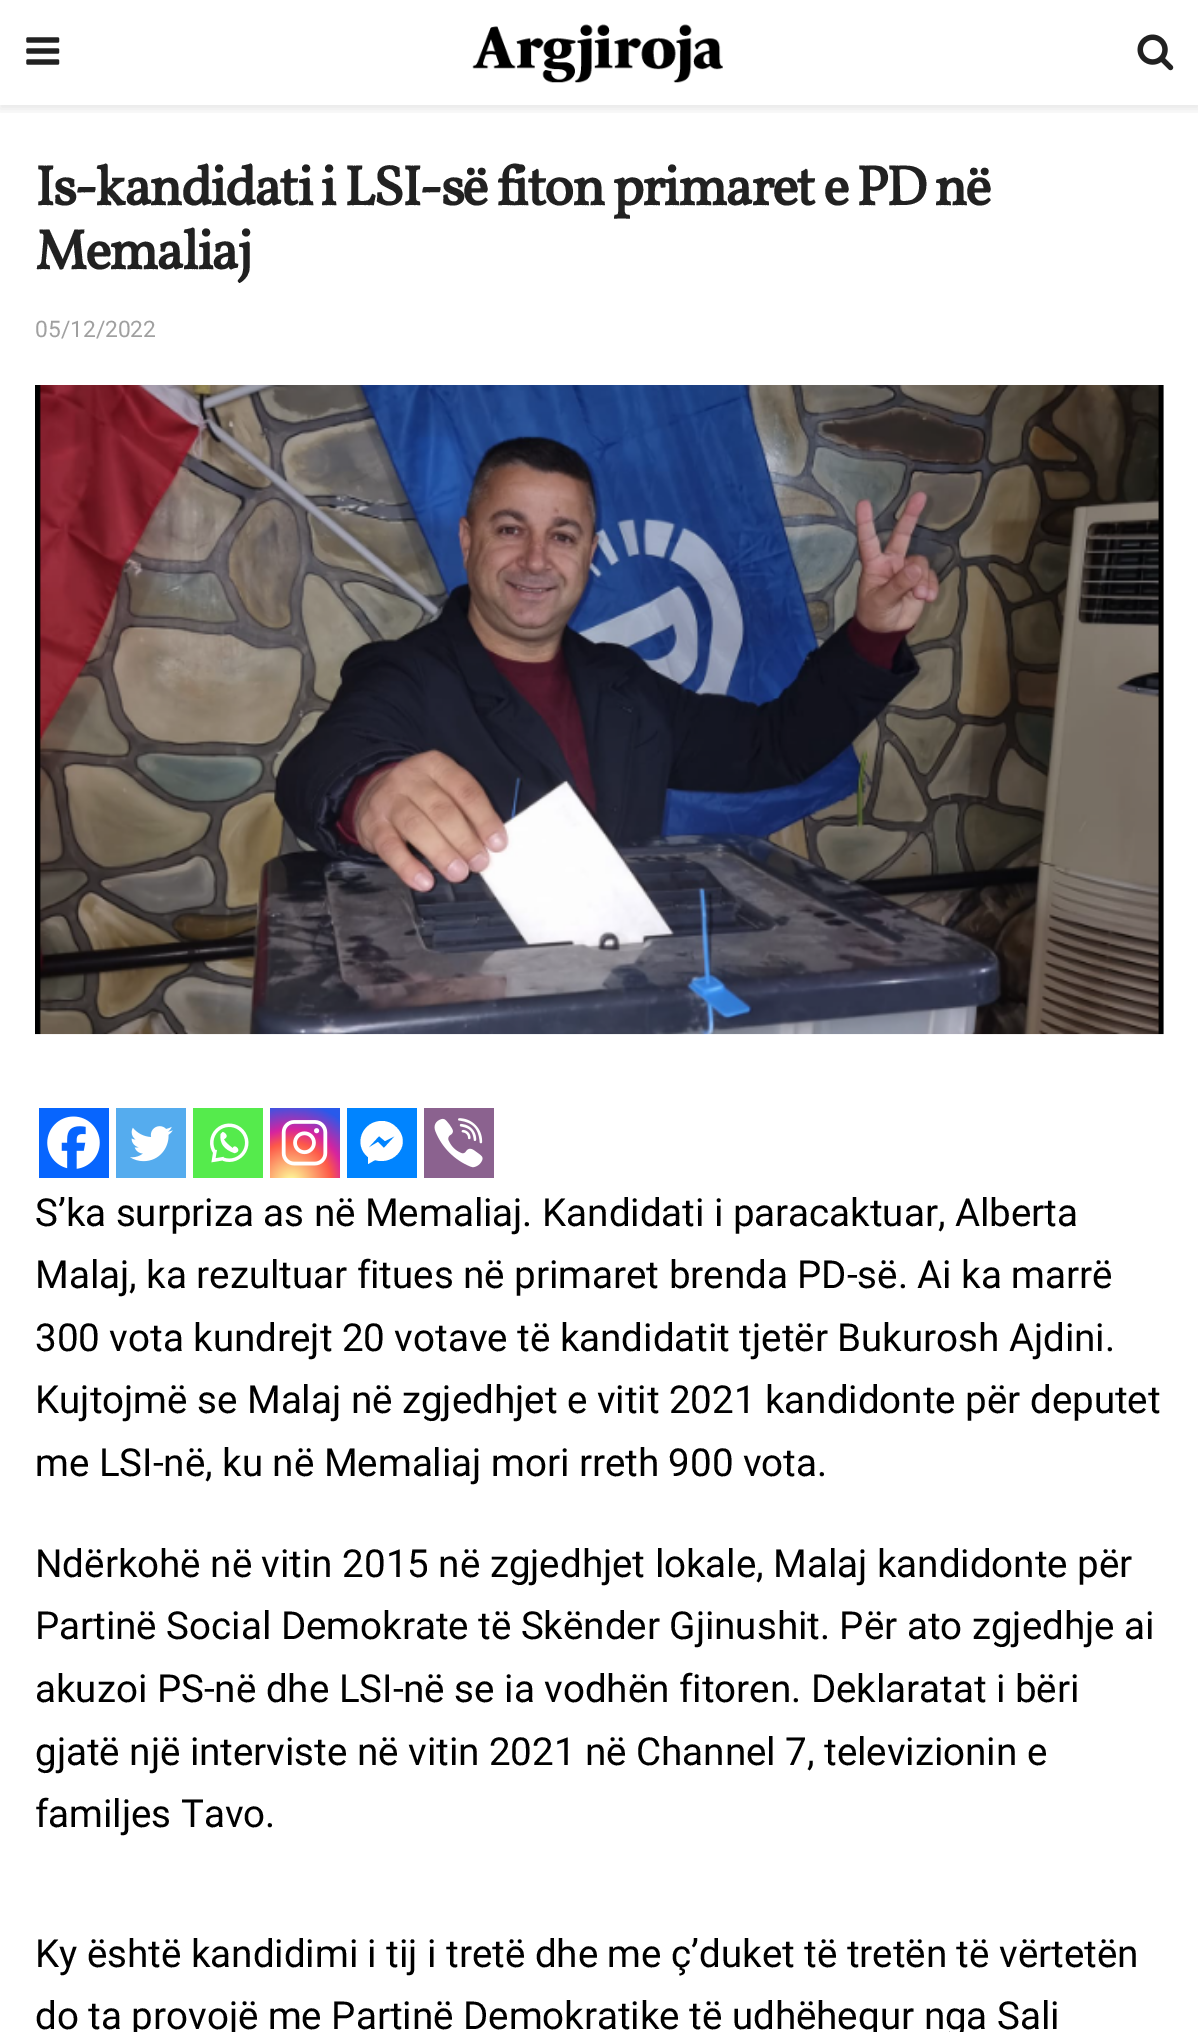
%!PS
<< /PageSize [1198 2032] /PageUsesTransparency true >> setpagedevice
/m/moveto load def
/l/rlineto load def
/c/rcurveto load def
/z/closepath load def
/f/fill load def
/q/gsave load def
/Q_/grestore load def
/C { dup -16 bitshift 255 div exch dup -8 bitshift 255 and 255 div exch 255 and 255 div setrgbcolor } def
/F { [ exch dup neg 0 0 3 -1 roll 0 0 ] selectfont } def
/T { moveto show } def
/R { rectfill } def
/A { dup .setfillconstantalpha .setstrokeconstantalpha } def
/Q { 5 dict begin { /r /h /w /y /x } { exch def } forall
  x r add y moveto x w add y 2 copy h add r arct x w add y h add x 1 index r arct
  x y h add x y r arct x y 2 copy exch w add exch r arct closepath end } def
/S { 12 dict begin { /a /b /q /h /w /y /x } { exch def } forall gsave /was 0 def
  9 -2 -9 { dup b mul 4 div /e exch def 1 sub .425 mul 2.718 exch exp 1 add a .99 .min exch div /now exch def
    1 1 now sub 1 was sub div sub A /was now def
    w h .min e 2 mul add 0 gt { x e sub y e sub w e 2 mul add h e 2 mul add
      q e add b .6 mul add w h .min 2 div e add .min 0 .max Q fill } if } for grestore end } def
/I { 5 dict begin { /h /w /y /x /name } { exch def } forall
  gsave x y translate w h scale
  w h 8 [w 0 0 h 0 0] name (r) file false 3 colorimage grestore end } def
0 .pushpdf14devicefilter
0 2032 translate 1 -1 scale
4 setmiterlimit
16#FFFFFF C
0 0 1198 2032 R
q
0 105 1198 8 rectclip
16#000000 C
0 4 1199 105 0 5 .1 S
Q_
(1.rgb) 26 37 34 28 I
(2.rgb) 472 24 251 59 I
(3.rgb) 1137 34 37 37 I
/Vollkorn-Bold 56 F
16#212121 C
35 205 m -2.25 0 (Is-kandidati i LSI-së fiton primaret e PD në) ashow
35 269 m -2.25 0 (Memaliaj) ashow
/Roboto-Regular 22.75 F
16#A0A0A0 C
(05/12/2022) 35 337 T
(5.rgb) 1163 385 1 649 I
(4.rgb) 35 385 1129 650 I
16#0765FE C
39 1108 70 70 R
(6.rgb) 47 1116 53 53 I
16#55ACEE C
116 1108 70 70 R
(7.rgb) 130 1126 43 36 I
16#55EB4C C
193 1108 70 70 R
(8.rgb) 210 1123 39 40 I
q 270 1108 m 70 0 l 0 70 l -70 0 l z clip newpath 291 1183 translate 90 90 scale
<< /ShadingType 3 /ColorSpace /DeviceRGB /Coords [0 0 0 0 0 1] /Extend [true true] /Function << /FunctionType 3 /Domain [0 1] /Functions [<< /FunctionType 2 /Domain [0 1] /C0 [.992 .957 .592] /C1 [.992 .957 .592] /N 1 >> << /FunctionType 2 /Domain [0 1] /C0 [.992 .957 .592] /C1 [.992 .349 .286] /N 1 >> << /FunctionType 2 /Domain [0 1] /C0 [.992 .349 .286] /C1 [.839 .141 .624] /N 1 >> << /FunctionType 2 /Domain [0 1] /C0 [.839 .141 .624] /C1 [.157 .353 .922] /N 1 >> << /FunctionType 2 /Domain [0 1] /C0 [.157 .353 .922] /C1 [.157 .353 .922] /N 1 >>] /Bounds [.05 .45 .6 .9] /Encode [0 1 0 1 0 1 0 1 0 1] >> >> shfill Q_
(9.rgb) 281 1120 47 46 I
16#0084FF C
347 1108 70 70 R
16#FFFFFF C
382 1121 m -20 0 -29 24 -14 36 c 0 7 l 7 -4 l 20 6 38 -17 21 -33 c -4 -4 -9 -6 -14 -6 c z 384 1148 m -6 -6 l -10 6 l 11 -12 l 6 5 l 10 -5 l z f
16#8B628F C
424 1108 70 70 R
(10.rgb) 434 1118 49 50 I
/Roboto-Regular 38.5 F
16#000000 C
(S’ka surpriza as në Memaliaj. Kandidati i paracaktuar, Alberta) 35 1226 T
(Malaj, ka rezultuar fitues në primaret brenda PD-së. Ai ka marrë) 35 1288 T
(300 vota kundrejt 20 votave të kandidatit tjetër Bukurosh Ajdini.) 35 1351 T
(Kujtojmë se Malaj në zgjedhjet e vitit 2021 kandidonte për deputet) 35 1413 T
(me LSI-në, ku në Memaliaj mori rreth 900 vota.) 35 1476 T
(Ndërkohë në vitin 2015 në zgjedhjet lokale, Malaj kandidonte për) 35 1577 T
(Partinë Social Demokrate të Skënder Gjinushit. Për ato zgjedhje ai) 35 1639 T
(akuzoi PS-në dhe LSI-në se ia vodhën fitoren. Deklaratat i bëri) 35 1702 T
(gjatë një interviste në vitin 2021 në Channel 7, televizionin e) 35 1765 T
(familjes Tavo.) 35 1827 T
(Ky është kandidimi i tij i tretë dhe me ç’duket të tretën të vërtetën) 35 1967 T
(do ta provojë me Partinë Demokratike të udhëhequr nga Sali) 35 2029 T
.poppdf14devicefilter showpage
